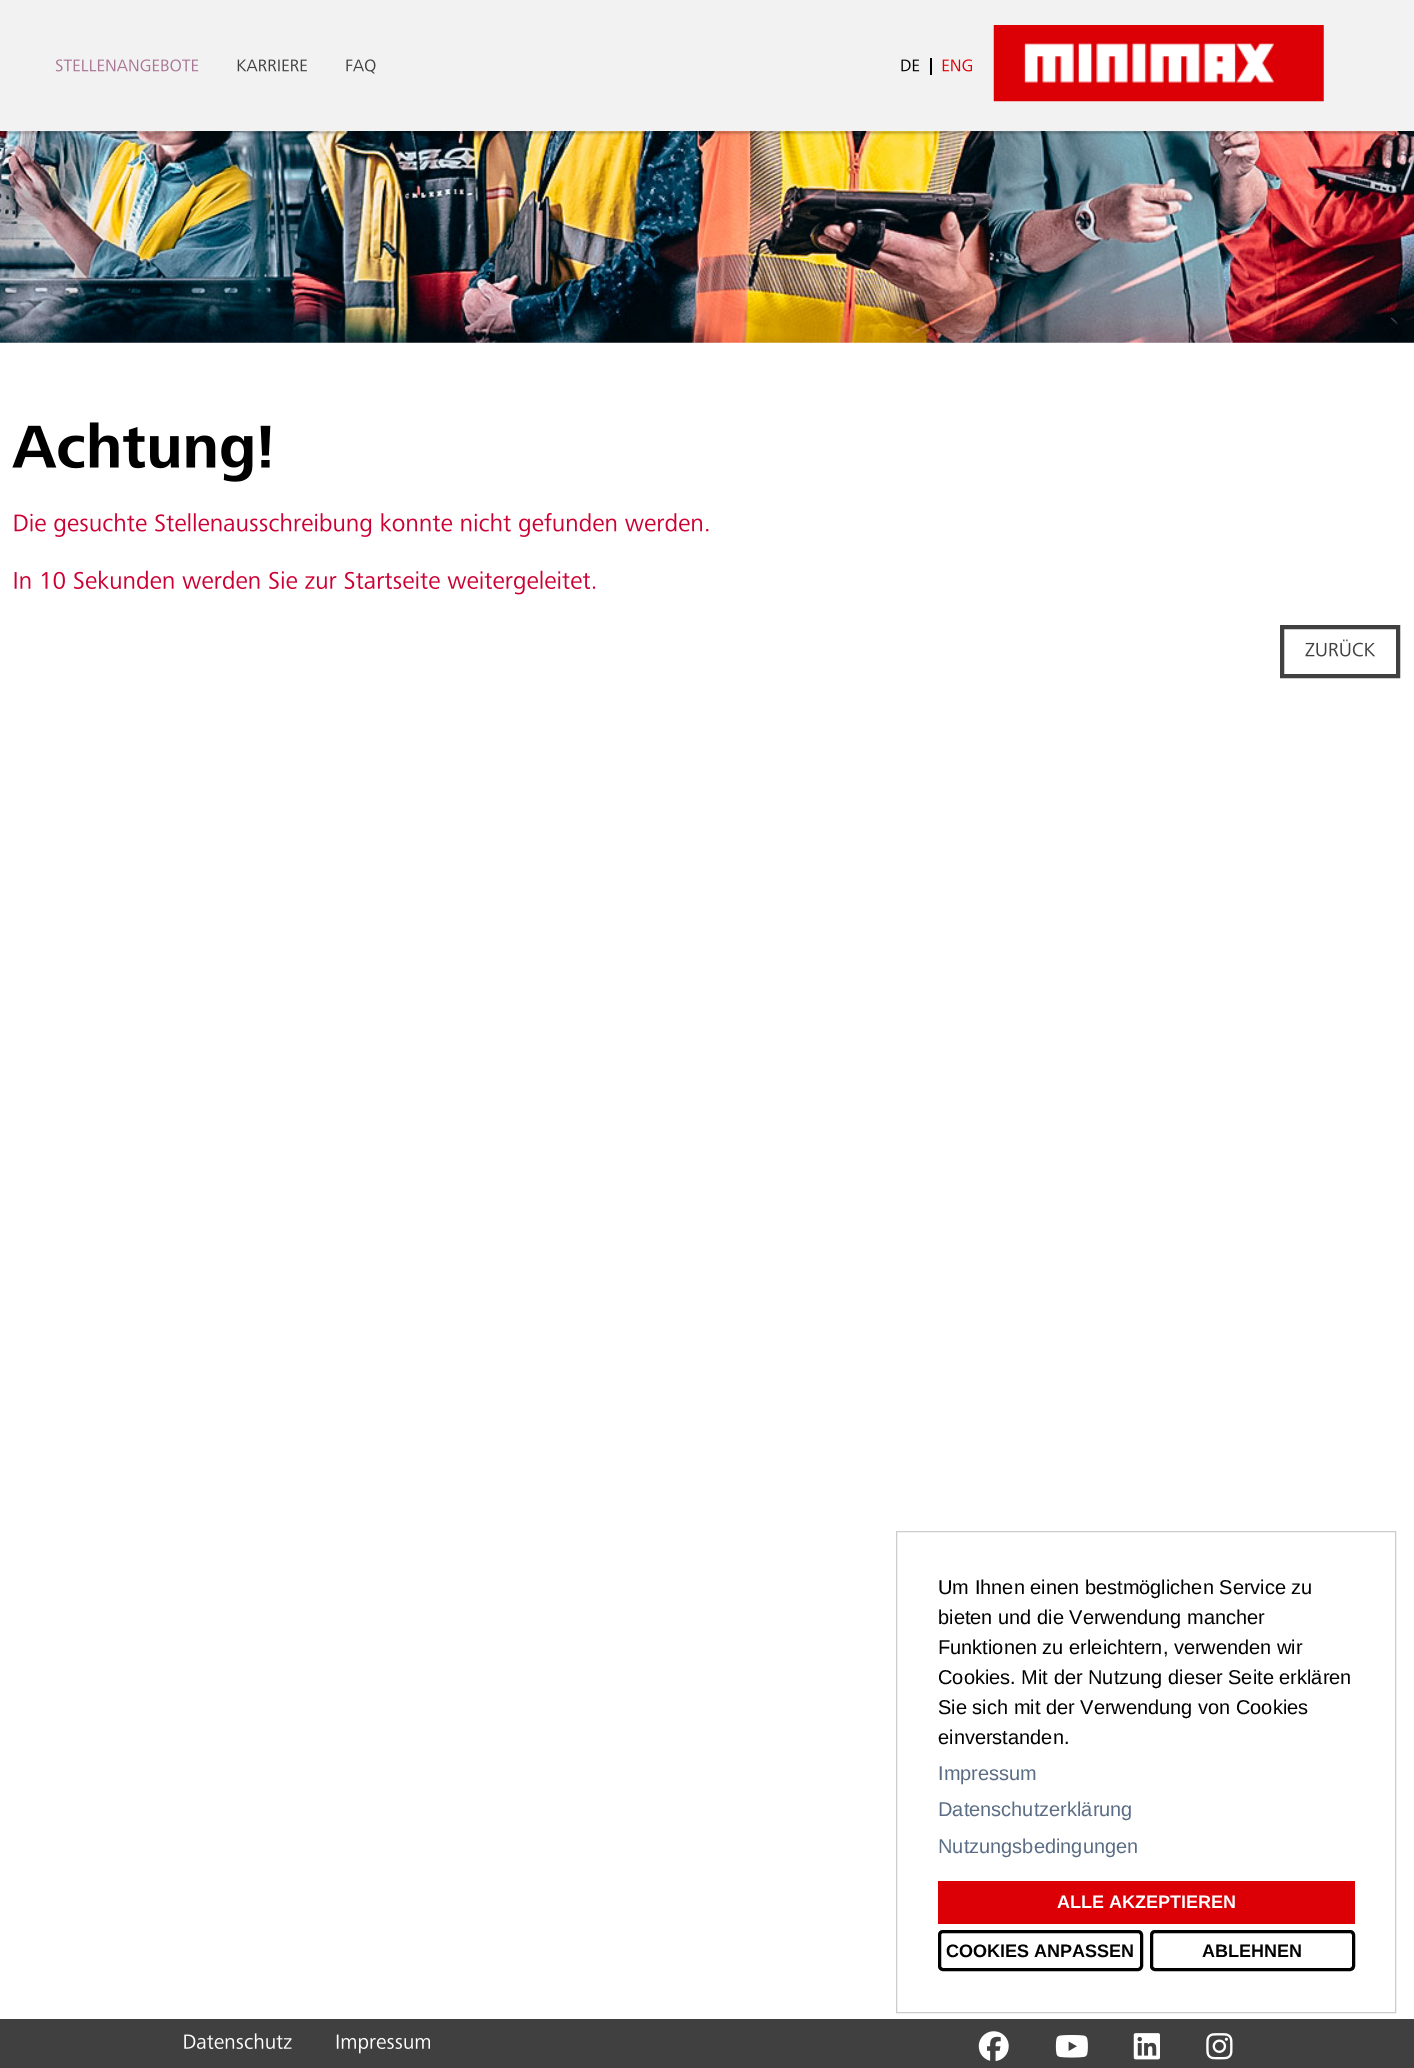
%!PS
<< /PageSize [1414 2068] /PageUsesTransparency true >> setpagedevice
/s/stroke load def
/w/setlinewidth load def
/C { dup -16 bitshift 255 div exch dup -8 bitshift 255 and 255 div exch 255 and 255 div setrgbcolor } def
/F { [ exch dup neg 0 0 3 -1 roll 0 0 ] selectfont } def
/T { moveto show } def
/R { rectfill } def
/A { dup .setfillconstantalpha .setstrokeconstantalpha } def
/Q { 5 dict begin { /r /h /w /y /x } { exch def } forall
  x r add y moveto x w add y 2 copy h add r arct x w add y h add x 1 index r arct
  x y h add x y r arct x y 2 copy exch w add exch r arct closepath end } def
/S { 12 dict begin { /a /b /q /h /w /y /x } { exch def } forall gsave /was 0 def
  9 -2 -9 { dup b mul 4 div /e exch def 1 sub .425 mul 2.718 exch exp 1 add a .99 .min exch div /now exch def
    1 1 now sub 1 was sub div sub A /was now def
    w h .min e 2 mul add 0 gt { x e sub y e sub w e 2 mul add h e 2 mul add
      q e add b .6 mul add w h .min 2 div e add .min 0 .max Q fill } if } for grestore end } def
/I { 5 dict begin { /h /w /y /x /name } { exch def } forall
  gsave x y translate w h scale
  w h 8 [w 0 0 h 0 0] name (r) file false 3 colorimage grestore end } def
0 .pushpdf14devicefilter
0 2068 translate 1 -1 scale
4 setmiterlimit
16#FFFFFF C
0 0 1414 2068 R
(7.rgb) 0 131 1414 212 I
0.08 A
16#000000 C
-.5 -.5 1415 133 rectstroke
1 A
0 3 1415 131 0 1 .16 S
16#F2F2F2 C
0 0 1414 131 R
(1.rgb) 55 59 144 13 I
(2.rgb) 237 59 70 13 I
(3.rgb) 346 59 30 15 I
(4.rgb) 901 59 19 13 I
16#000000 C
930 58 2 17 R
(5.rgb) 942 59 30 13 I
(6.rgb) 993 25 331 77 I
(8.rgb) 12 422 259 60 I
(9.rgb) 14 513 695 24 I
(10.rgb) 14 570 582 25 I
16#404040 C
4 w
1282 627 116 49 rectstroke
(11.rgb) 1305 639 71 18 I
0 2019 1414 49 R
(12.rgb) 184 2033 108 16 I
(13.rgb) 336 2034 94 20 I
(14.rgb) 978 2031 31 31 I
(15.rgb) 1055 2035 33 23 I
(16.rgb) 1133 2033 27 27 I
(17.rgb) 1206 2033 27 27 I
16#CCCCCC C
1 w
896.5 1531.5 499 481 rectstroke
/LiberationSans-Regular 20 F
16#000000 C
(Um Ihnen einen bestmöglichen Service zu) 938 1594 T
(bieten und die Verwendung mancher) 938 1624 T
(Funktionen zu erleichtern, verwenden wir) 938 1654 T
(Cookies. Mit der Nutzung dieser Seite erklären) 938 1684 T
(Sie sich mit der Verwendung von Cookies) 938 1714 T
(einverstanden.) 938 1744 T
16#5B6D85 C
(Impressum) 938 1780 T
(Datenschutzerklärung) 938 1816 T
(Nutzungsbedingungen) 938 1853 T
16#DC0006 C
938 1881 417 43 R
/LiberationSans-Bold 18 F
16#FFFFFF C
(ALLE AKZEPTIEREN) 1057 1908 T
16#000000 C
3 w
939.5 1931.5 202 38 3.5 Q s
(COOKIES ANPASSEN) 946 1957 T
1151.5 1931.5 202 38 3.5 Q s
(ABLEHNEN) 1202 1957 T
.poppdf14devicefilter showpage
